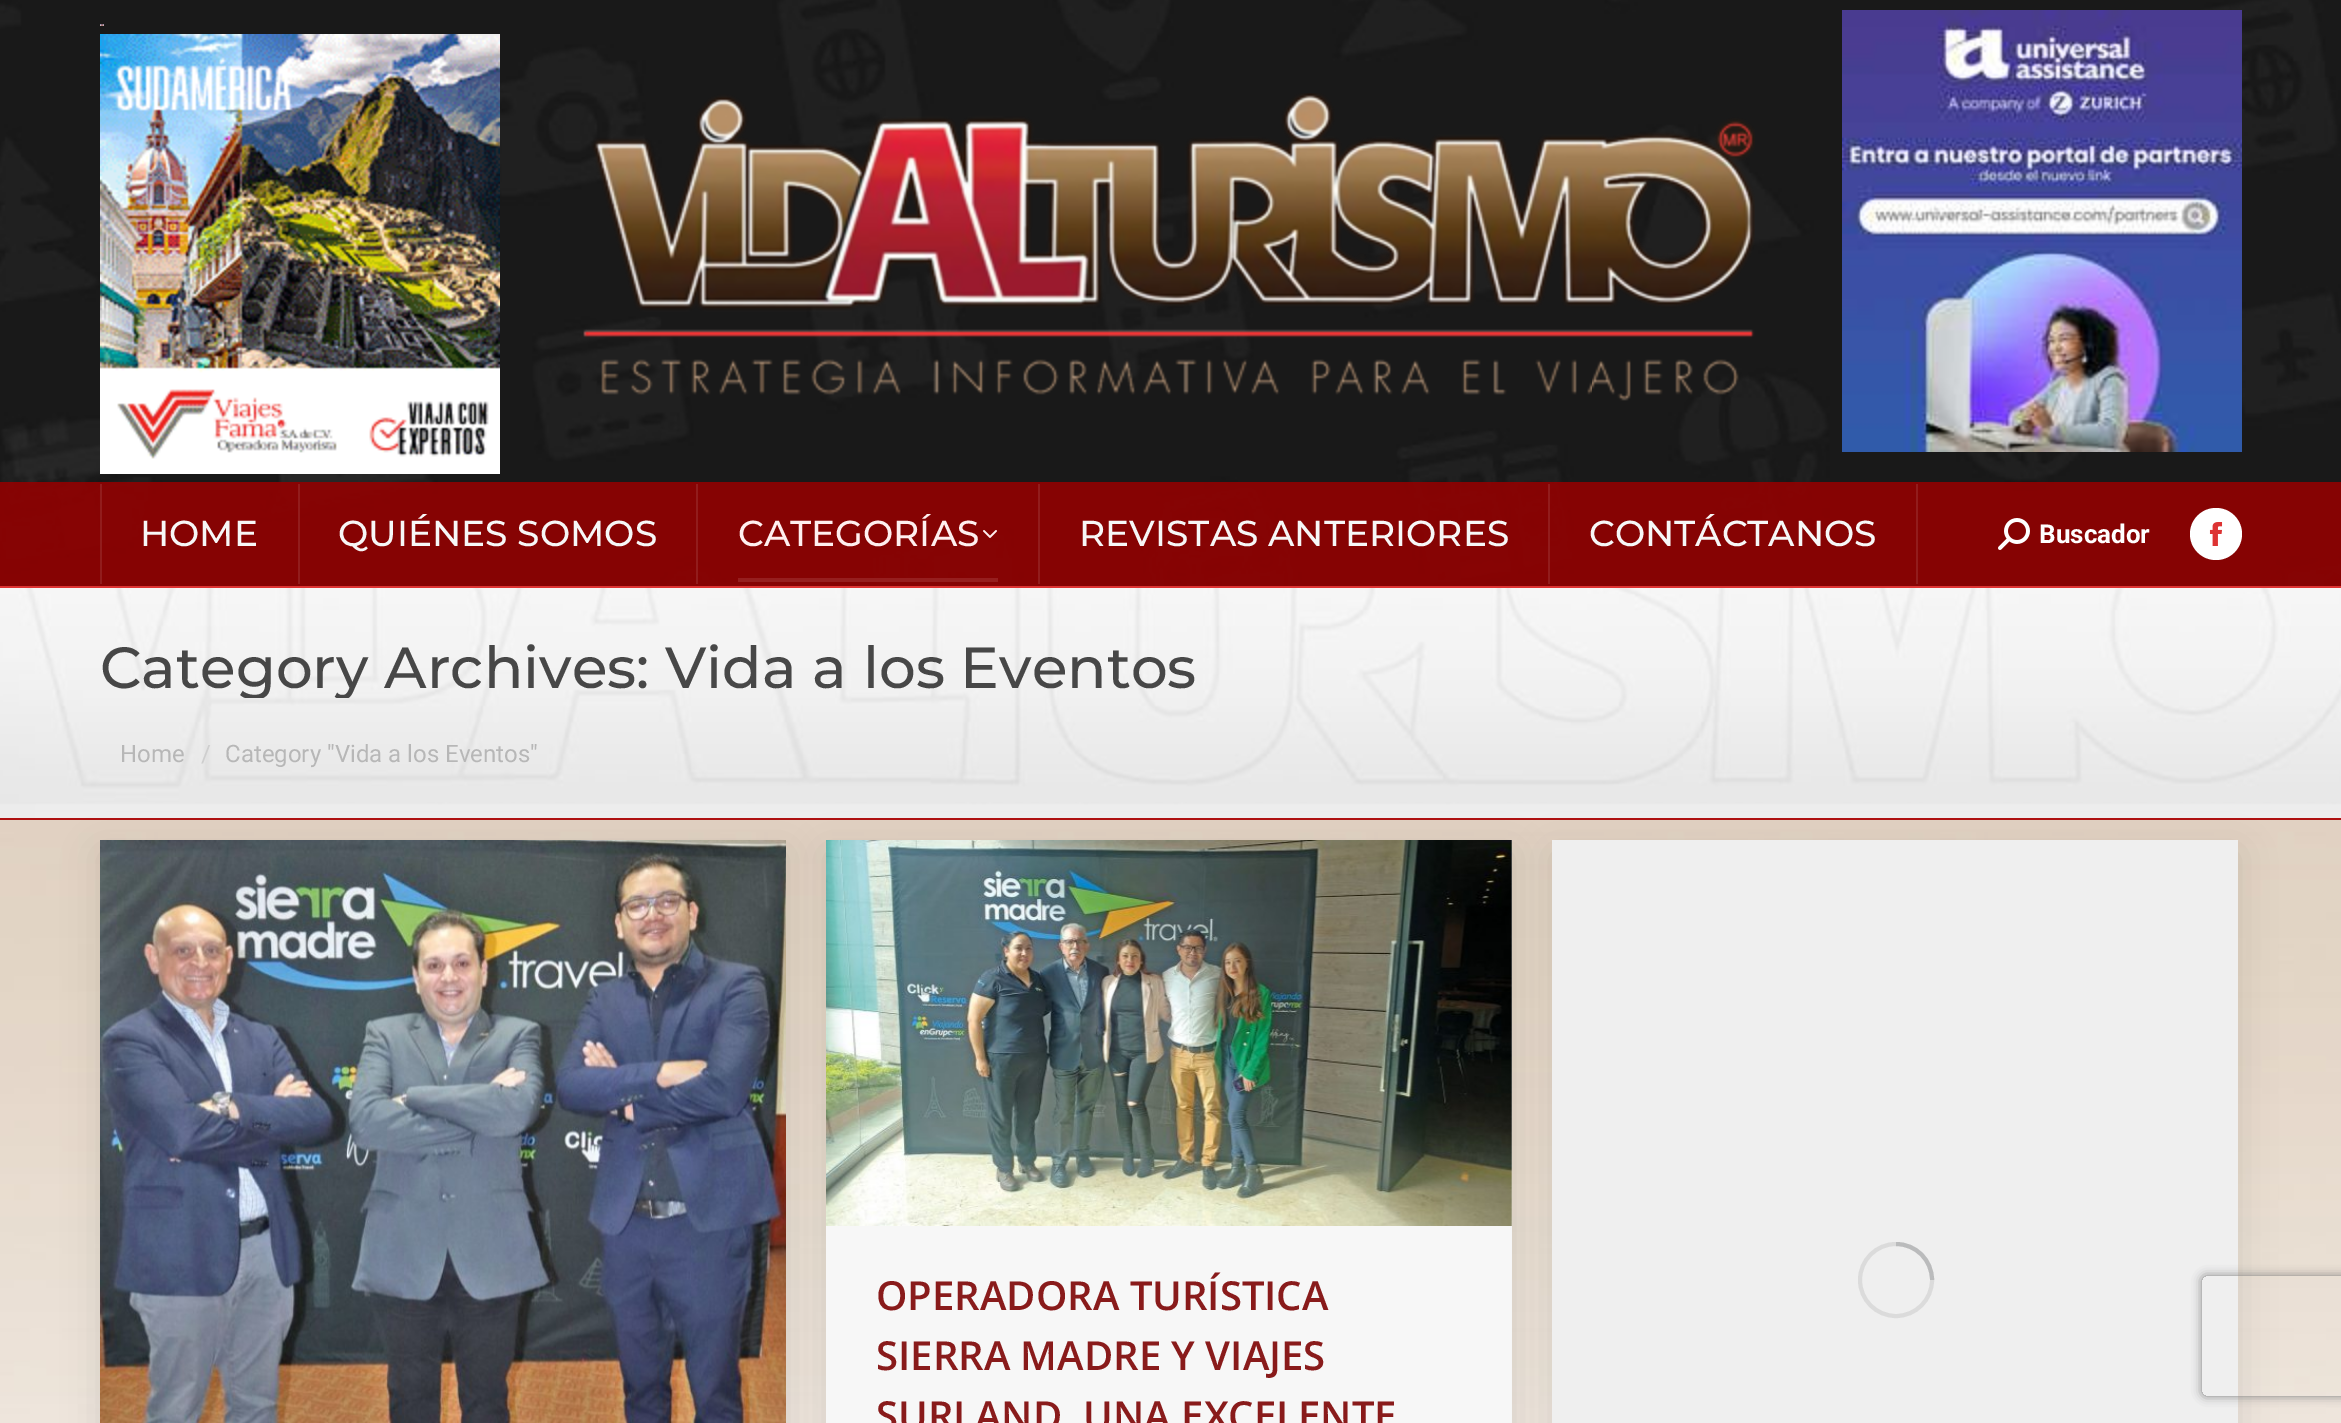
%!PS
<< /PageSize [2341 1423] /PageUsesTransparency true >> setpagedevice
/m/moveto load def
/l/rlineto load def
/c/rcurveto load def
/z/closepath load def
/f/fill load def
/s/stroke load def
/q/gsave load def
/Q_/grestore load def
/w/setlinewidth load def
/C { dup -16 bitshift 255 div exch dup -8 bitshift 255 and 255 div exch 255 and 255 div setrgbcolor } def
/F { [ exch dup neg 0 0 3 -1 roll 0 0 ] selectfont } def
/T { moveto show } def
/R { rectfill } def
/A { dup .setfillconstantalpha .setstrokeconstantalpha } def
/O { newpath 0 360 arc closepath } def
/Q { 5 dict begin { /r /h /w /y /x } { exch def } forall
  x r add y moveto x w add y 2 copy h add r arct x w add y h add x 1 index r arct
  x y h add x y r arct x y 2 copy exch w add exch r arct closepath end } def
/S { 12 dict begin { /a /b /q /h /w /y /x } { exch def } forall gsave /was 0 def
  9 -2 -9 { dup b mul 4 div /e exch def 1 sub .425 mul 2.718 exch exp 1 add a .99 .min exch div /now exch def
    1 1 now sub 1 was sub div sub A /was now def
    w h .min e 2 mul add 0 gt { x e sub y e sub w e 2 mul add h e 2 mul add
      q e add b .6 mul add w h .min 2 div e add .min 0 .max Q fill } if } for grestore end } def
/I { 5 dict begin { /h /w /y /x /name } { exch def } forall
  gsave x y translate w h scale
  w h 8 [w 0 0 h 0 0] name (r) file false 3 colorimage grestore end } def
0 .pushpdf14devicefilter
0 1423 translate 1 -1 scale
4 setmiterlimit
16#FFFFFF C
0 0 2341 1423 R
(1.rgb) 0 820 2341 603 I
(2.rgb) 0 0 2341 586 I
16#DD3333 C
0 586 2341 2 R
(3.rgb) 100 24 4 2 I
(4.rgb) 100 34 400 440 I
(5.rgb) 583 93 1172 308 I
(6.rgb) 1842 10 400 442 I
0.89 A
16#930000 C
0 482 2341 104 R
1 A
16#921C1C C
100 484 2 100 R
/Montserrat-Medium 36 F
16#F7F7F7 C
(HOME) 140 546 T
16#921C1C C
298 484 2 100 R
16#F7F7F7 C
(QUIÉNES SOMOS) 338 546 T
16#921C1C C
696 484 2 100 R
16#FFEFEF C
(CATEGORÍAS) 738 546 T
(7.rgb) 983 530 14 8 I
16#961E1E C
738 578 260 4 R
16#921C1C C
1038 484 2 100 R
16#F7F7F7 C
(REVISTAS ANTERIORES) 1079 546 T
16#921C1C C
1548 484 2 100 R
16#F7F7F7 C
(CONTÁCTANOS) 1589 546 T
16#921C1C C
1916 484 2 100 R
(8.rgb) 1998 518 32 32 I
/Roboto-Bold 26 F
16#FFFFFF C
(Buscador) 2039 543 T
2216 534 26 O f
(9.rgb) 2209 522 14 24 I
(10.rgb) 0 588 2341 230 I
16#AF1111 C
0 818 2341 2 R
q
100 638 1096 60 rectclip
/Montserrat-Medium 58 F
16#474747 C
(Category Archives:) 100 688 T
Q_
/Montserrat-Medium 58 F
16#474747 C
(Vida a los Eventos) 665 688 T
/Roboto-Regular 24 F
16#B7B7B7 C
(Home) 120 762 T
16#CECECE C
(/) 201 762 T
16#B7B7B7 C
(Category "Vida a los Eventos") 225 762 T
16#000000 C
100 852 686 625 0 18 .1 S
(11.rgb) 100 840 686 583 I
826 852 686 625 0 18 .1 S
16#F7F7F7 C
826 840 686 583 R
(12.rgb) 826 840 686 386 I
/OpenSans-SemiBold 40 F
16#891B1B C
(OPERADORA TURÍSTICA) 876 1310 T
(SIERRA MADRE Y VIAJES) 876 1370 T
(SURLAND, UNA EXCELENTE) 876 1430 T
16#000000 C
1552 852 686 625 0 18 .1 S
16#F7F7F7 C
1552 840 686 583 R
q
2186 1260 m 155 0 l 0 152 l -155 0 l z 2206 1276 m 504 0 l 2 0 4 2 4 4 c 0 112 l 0 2 -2 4 -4 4 c -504 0 l -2 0 -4 -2 -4 -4 c 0 -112 l 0 -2 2 -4 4 -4 c z eoclip newpath
16#808080 C
2202 1276 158 120 4 5 1 S
Q_
0.05 A
16#595A5E C
1552 840 686 583 R
1 A
16#DBDBDB C
4 w
1896 1280 36 O s
0.25 A
16#595A5E C
1932 1280 m 0 -20 -16 -36 -36 -36 c s
.poppdf14devicefilter showpage
